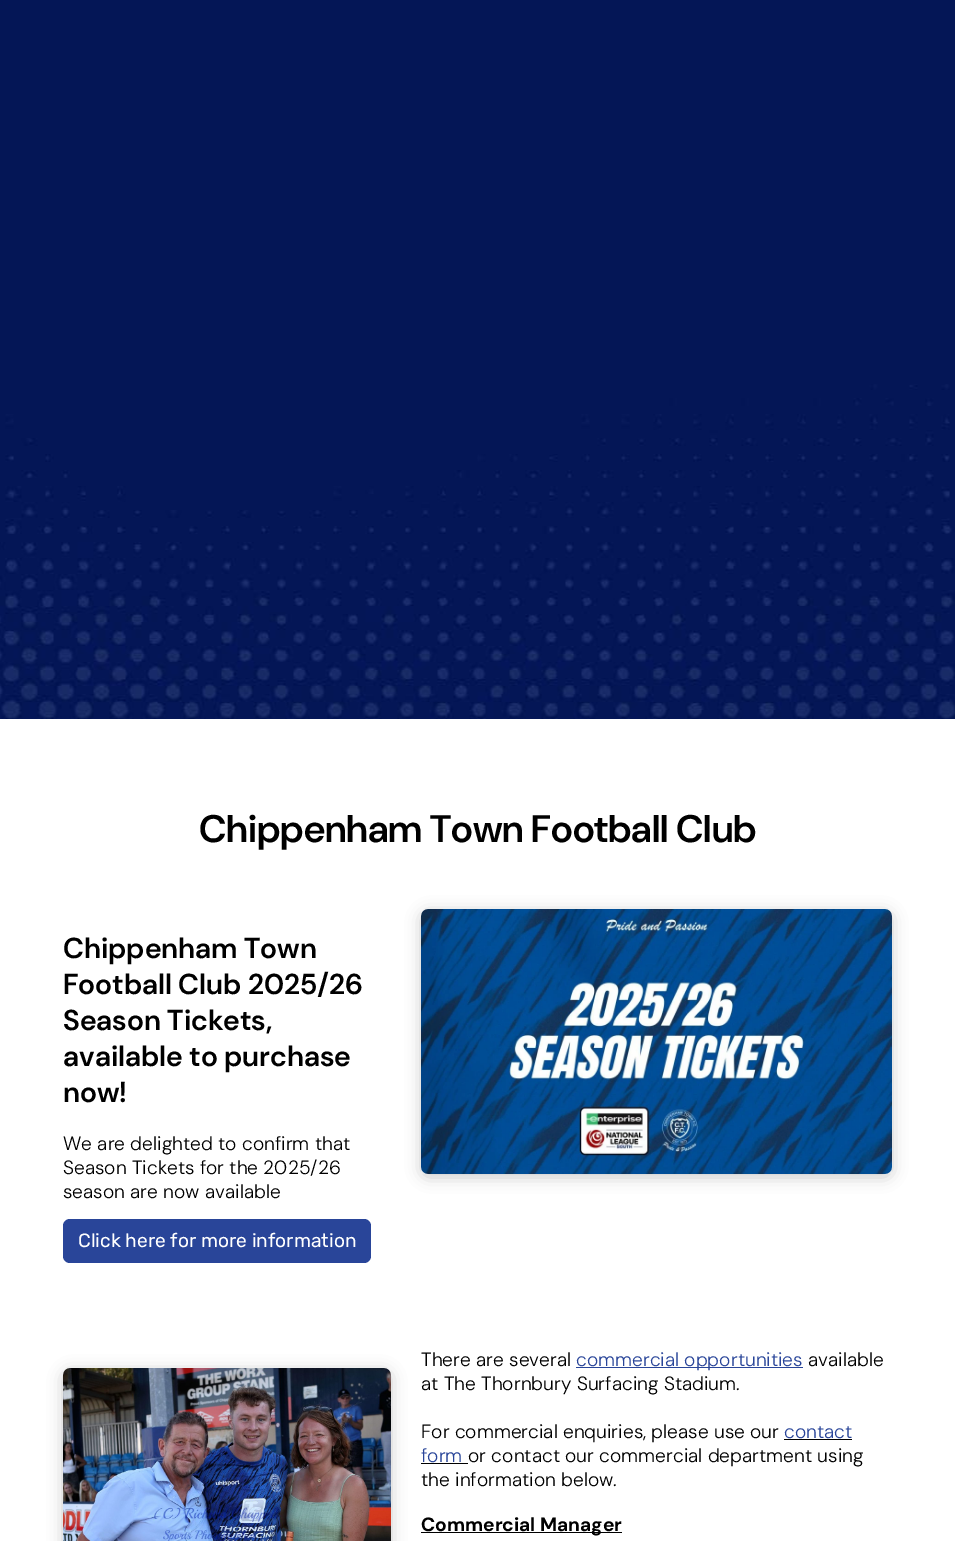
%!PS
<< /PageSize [955 1541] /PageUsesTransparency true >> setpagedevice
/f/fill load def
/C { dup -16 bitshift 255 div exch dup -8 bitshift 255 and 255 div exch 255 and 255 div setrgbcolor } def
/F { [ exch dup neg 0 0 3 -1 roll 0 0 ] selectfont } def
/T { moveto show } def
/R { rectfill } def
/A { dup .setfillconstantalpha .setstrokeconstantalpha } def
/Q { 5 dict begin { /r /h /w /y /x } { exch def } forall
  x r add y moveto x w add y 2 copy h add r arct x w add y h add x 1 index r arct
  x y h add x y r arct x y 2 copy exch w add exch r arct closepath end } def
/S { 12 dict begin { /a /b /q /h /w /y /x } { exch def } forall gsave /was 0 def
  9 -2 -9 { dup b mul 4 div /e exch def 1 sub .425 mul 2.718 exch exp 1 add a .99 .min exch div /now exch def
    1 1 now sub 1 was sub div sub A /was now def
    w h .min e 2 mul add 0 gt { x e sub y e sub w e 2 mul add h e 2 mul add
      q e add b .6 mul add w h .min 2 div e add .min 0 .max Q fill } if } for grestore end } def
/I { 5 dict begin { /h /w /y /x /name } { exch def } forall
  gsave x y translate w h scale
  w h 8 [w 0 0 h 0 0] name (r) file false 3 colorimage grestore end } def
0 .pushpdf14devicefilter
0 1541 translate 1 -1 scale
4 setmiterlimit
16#FFFFFF C
0 0 955 1541 R
16#041656 C
0 0 955 384 R
(1.rgb) 0 384 955 335 I
/DMSans-SemiBold 38.4 F
16#000000 C
(Chippenham Town Football Club) 199 842 T
/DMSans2-SemiBold 28.75 F
(Chippenham Town) 63 958 T
(Football Club 2025/26) 63 994 T
(Season Tickets,) 63 1030 T
(available to purchase) 63 1066 T
(now!) 63 1102 T
/DMSans-Light 19.2 F
(We are delighted to confirm that) 63 1150 T
(Season Tickets for the 2025/26) 63 1174 T
(season are now available) 63 1198 T
16#294599 C
63 1219 308 44 7 Q f
/Rubik-Regular 19.2 F
16#FFFFFF C
(Click here for more information) 78 1247 T
16#000000 C
421 912 471 265 7 7.5 .2 S
(2.rgb) 421 909 471 265 I
63 1371 328 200 7 7.5 .2 S
(3.rgb) 63 1368 328 173 I
/DMSans-Light 19.2 F
(There are several) 421 1366 T
16#294599 C
576 1367 227 1 R
(commercial opportunities) 576 1366 T
16#000000 C
(available) 808 1366 T
(at The Thornbury Surfacing Stadium.) 421 1390 T
(For commercial enquiries, please use our) 421 1438 T
16#294599 C
(contact) 784 1438 T
16#000000 C
784 1439 68 1 R
16#294599 C
(form) 421 1462 T
16#000000 C
421 1463 47 1 R
(or contact our commercial department using) 468 1462 T
(the information below.) 421 1486 T
421 1532 201 1 R
/DMSans-Bold 19.2 F
(Commercial Manager) 421 1531 T
.poppdf14devicefilter showpage
